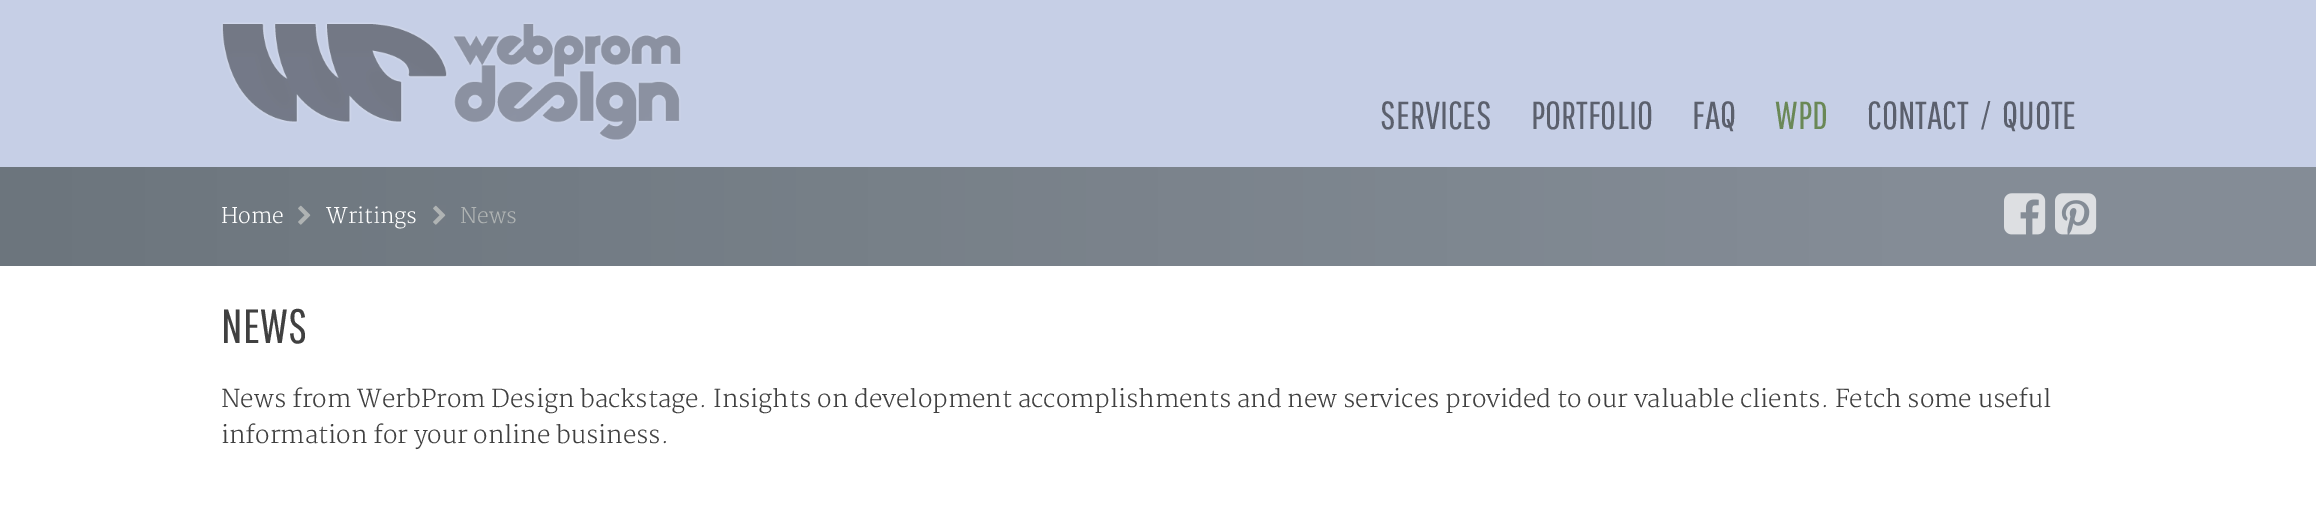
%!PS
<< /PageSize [2316 507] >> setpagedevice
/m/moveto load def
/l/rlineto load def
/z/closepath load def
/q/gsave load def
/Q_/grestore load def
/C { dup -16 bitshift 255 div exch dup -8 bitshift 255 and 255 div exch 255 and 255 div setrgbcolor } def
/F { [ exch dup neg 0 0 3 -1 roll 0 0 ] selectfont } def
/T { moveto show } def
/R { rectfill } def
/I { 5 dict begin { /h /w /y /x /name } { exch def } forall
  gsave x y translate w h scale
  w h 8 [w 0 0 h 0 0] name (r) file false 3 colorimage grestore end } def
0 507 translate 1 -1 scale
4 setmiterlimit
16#FFFFFF C
0 0 2316 507 R
16#C6CFE6 C
0 0 2316 167 R
(1.rgb) 221 22 460 119 I
/PathwayGothicOne-Regular 39 F
16#5B606D C
(SERVICES) 1380 129 T
(PORTFOLIO) 1531 129 T
(FAQ) 1692 129 T
16#6A8856 C
(WPD) 1775 129 T
16#5B606D C
(CONTACT  ⁄  QUOTE) 1867 129 T
q 0 167 m 2316 0 l 0 99 l -2316 0 l z clip newpath
<< /ShadingType 2 /ColorSpace /DeviceRGB /Coords [0 216 2316 216] /Extend [true true] /Function << /FunctionType 3 /Domain [0 1] /Functions [<< /FunctionType 2 /Domain [0 1] /C0 [.424 .459 .49] /C1 [.518 .549 .588] /N 1 >> << /FunctionType 2 /Domain [0 1] /C0 [.518 .549 .588] /C1 [.518 .549 .588] /N 1 >>] /Bounds [.82] /Encode [0 1 0 1] >> >> shfill Q_
/Martel-ExtraLight 21 F
16#FFFFFF C
(Home) 221 223 T
(2.rgb) 298 205 13 20 I
(Writings) 326 223 T
(3.rgb) 433 205 13 20 I
16#AFB3B3 C
(News) 460 223 T
(4.rgb) 2004 193 42 42 I
(5.rgb) 2055 193 42 42 I
/PathwayGothicOne-Regular 48 F
16#404040 C
(NEWS) 221 343 T
/Martel-ExtraLight 24 F
(News from WerbProm Design backstage. Insights on development accomplishments and new services provided to our valuable clients. Fetch some useful) 221 407 T
(information for your online business.) 221 443 T
showpage
